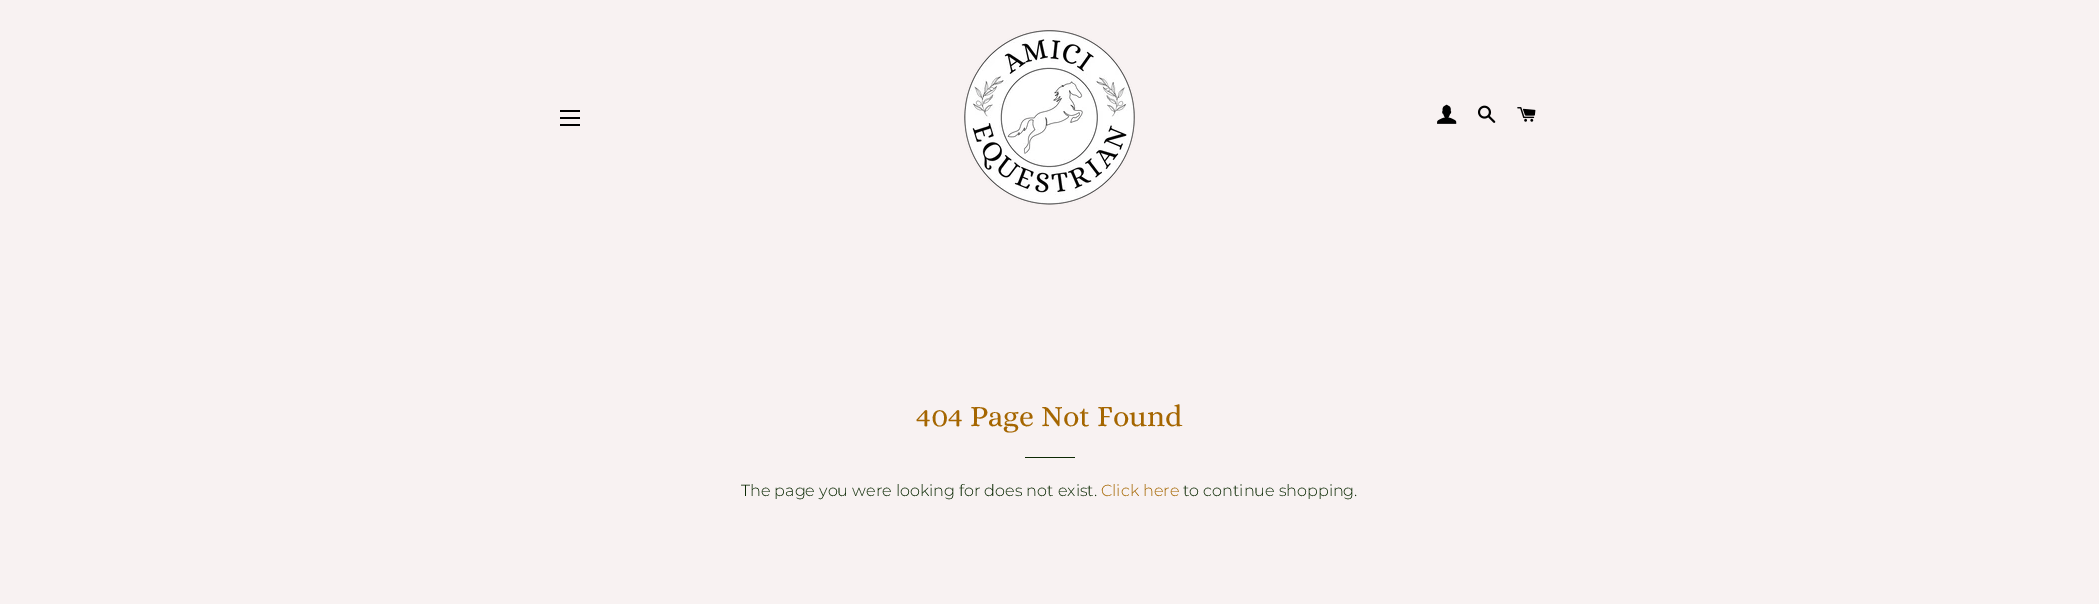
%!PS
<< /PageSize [2099 604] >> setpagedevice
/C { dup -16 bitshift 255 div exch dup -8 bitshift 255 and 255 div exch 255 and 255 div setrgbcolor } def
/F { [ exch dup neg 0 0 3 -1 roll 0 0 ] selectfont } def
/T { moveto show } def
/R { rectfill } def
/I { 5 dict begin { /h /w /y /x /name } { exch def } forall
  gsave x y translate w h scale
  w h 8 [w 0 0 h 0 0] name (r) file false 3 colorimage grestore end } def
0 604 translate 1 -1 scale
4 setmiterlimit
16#F8F2F2 C
0 0 2099 604 R
16#000000 C
560 110 20 2 R
560 117 20 2 R
560 124 20 2 R
(1.rgb) 964 30 171 175 I
(2.rgb) 1437 104 20 20 I
(3.rgb) 1478 105 18 18 I
(4.rgb) 1517 107 19 15 I
/Alice-Regular 30 F
16#A56600 C
(404 Page Not Found) 916 426 T
16#0C2A04 C
1025 457 50 1 R
/Montserrat-Light 16 F
(The page you were looking for does not exist.) 741 496 T
16#A56600 C
(Click here) 1101 496 T
16#0C2A04 C
(to continue shopping.) 1183 496 T
showpage
